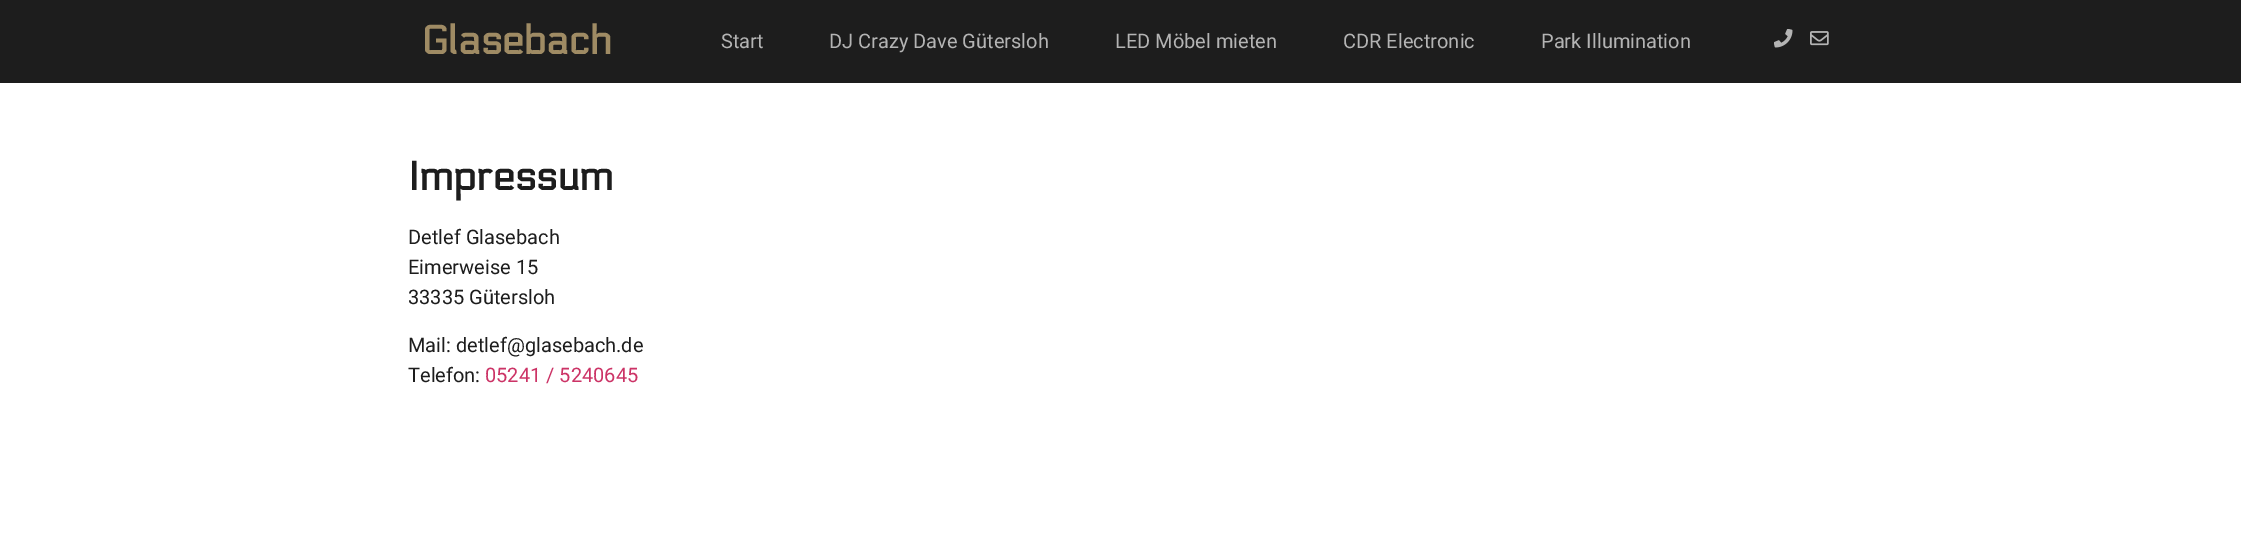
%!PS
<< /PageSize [2241 542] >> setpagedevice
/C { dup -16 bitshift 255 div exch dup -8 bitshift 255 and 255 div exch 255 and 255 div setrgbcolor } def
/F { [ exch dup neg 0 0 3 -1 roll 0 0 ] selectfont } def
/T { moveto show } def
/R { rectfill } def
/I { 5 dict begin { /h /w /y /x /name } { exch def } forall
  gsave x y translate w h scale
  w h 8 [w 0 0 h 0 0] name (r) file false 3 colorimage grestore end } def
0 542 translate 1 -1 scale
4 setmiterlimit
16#FFFFFF C
0 0 2241 542 R
16#1D1D1D C
0 0 2241 83 R
/Electrolize-Bold 40 F
16#9F8B64 C
(Glasebach) 421 54 T
/Roboto-Regular 20 F
16#B4B4B4 C
(Start) 721 48 T
(DJ Crazy Dave Gütersloh) 829 48 T
(LED Möbel mieten) 1115 48 T
(CDR Electronic) 1343 48 T
(Park Illumination) 1541 48 T
(1.rgb) 1774 29 19 19 I
(2.rgb) 1810 31 19 15 I
/Electrolize-Bold 40 F
16#1D1D1D C
(Impressum) 408 190 T
/Roboto-Regular 20 F
(Detlef Glasebach) 408 244 T
(Eimerweise 15) 408 274 T
(33335 Gütersloh) 408 304 T
(Mail: detlef@glasebach.de) 408 352 T
(Telefon:) 408 382 T
16#CC3366 C
(05241 / 5240645) 485 382 T
showpage
